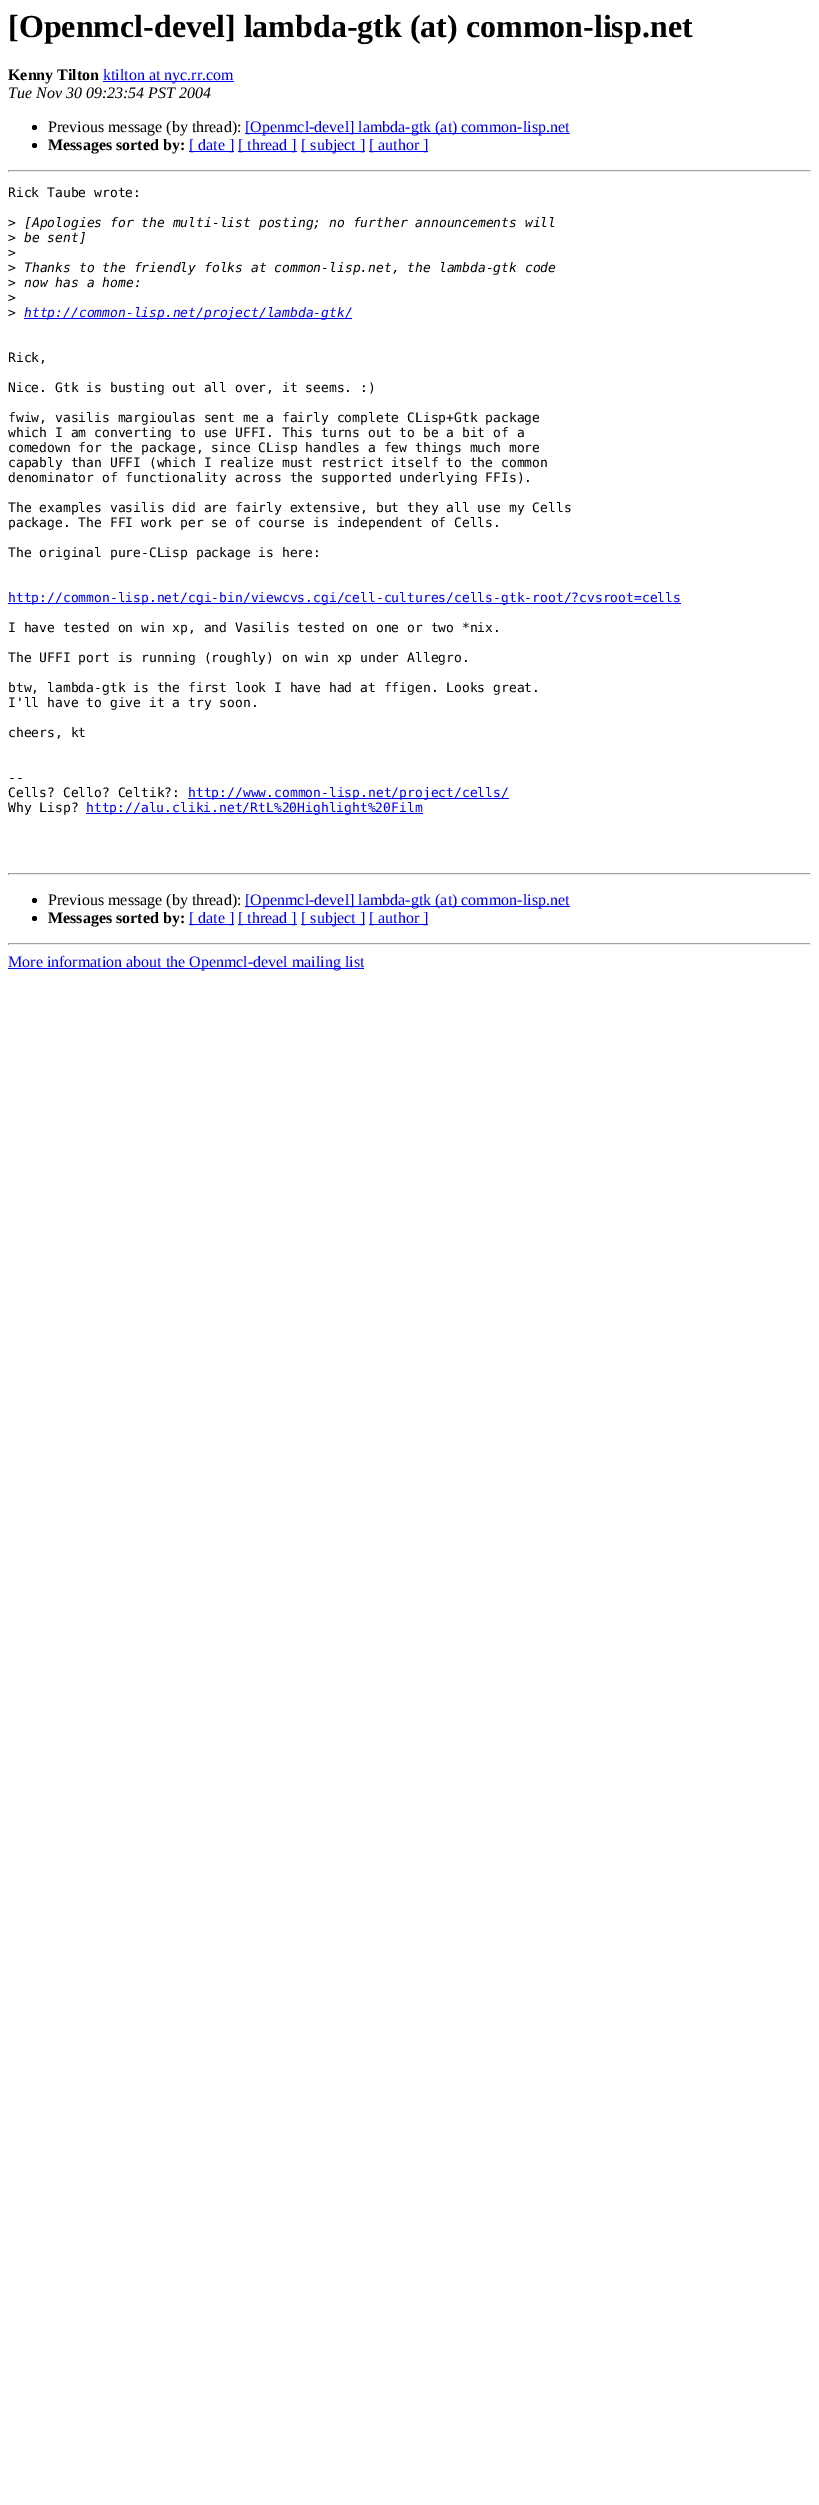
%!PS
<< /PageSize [819 2505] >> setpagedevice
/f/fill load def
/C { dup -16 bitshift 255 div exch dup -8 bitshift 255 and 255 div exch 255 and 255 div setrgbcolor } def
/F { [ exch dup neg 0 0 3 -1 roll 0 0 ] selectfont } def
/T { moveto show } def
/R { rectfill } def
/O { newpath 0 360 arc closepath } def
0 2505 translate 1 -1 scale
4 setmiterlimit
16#FFFFFF C
0 0 819 2505 R
/LiberationSerif-Bold 32 F
16#000000 C
([Openmcl-devel] lambda-gtk \(at\) common-lisp.net) 8 37 T
/LiberationSerif-Bold 16 F
(Kenny Tilton) 8 80 T
16#0000EE C
103 81 131 1 R
/LiberationSerif-Regular 16 F
(ktilton at nyc.rr.com) 103 80 T
/LiberationSerif-Italic 16 F
16#000000 C
(Tue Nov 30 09:23:54 PST 2004) 8 98 T
34.5 127.5 2.5 O f
/LiberationSerif-Regular 16 F
(Previous message \(by thread\):) 48 132 T
16#0000EE C
245 133 325 1 R
([Openmcl-devel] lambda-gtk \(at\) common-lisp.net) 245 132 T
16#000000 C
34.5 145.5 2.5 O f
/LiberationSerif-Bold 16 F
(Messages sorted by:) 48 150 T
16#0000EE C
189 151 45 1 R
/LiberationSerif-Regular 16 F
([ date ]) 189 150 T
238 151 59 1 R
([ thread ]) 238 150 T
301 151 64 1 R
([ subject ]) 301 150 T
369 151 59 1 R
([ author ]) 369 150 T
16#9F9F9F C
8 170 803 1 R
16#EEEEEE C
810 170 1 2 R
8 171 803 1 R
16#9F9F9F C
8 170 1 2 R
/DejaVuSansMono-Regular 13 F
16#000000 C
(Rick Taube wrote:) 8 197 T
(>) 8 227 T
/DejaVuSansMono-Italic 13 F
([Apologies for the multi-list posting; no further announcements will) 24 227 T
/DejaVuSansMono-Regular 13 F
(>) 8 242 T
/DejaVuSansMono-Italic 13 F
(be sent]) 24 242 T
/DejaVuSansMono-Regular 13 F
(>) 8 257 T
(>) 8 272 T
/DejaVuSansMono-Italic 13 F
(Thanks to the friendly folks at common-lisp.net, the lambda-gtk code) 24 272 T
/DejaVuSansMono-Regular 13 F
(>) 8 287 T
/DejaVuSansMono-Italic 13 F
(now has a home:) 24 287 T
/DejaVuSansMono-Regular 13 F
(>) 8 302 T
(>) 8 317 T
16#0000EE C
24 318 328 1 R
/DejaVuSansMono-Italic 13 F
(http://common-lisp.net/project/lambda-gtk/) 24 317 T
/DejaVuSansMono-Regular 13 F
16#000000 C
(Rick,) 8 362 T
(Nice. Gtk is busting out all over, it seems. :\)) 8 392 T
(fwiw, vasilis margioulas sent me a fairly complete CLisp+Gtk package) 8 422 T
(which I am converting to use UFFI. This turns out to be a bit of a) 8 437 T
(comedown for the package, since CLisp handles a few things much more) 8 452 T
(capably than UFFI \(which I realize must restrict itself to the common) 8 467 T
(denominator of functionality across the supported underlying FFIs\).) 8 482 T
(The examples vasilis did are fairly extensive, but they all use my Cells) 8 512 T
(package. The FFI work per se of course is independent of Cells.) 8 527 T
(The original pure-CLisp package is here:) 8 557 T
16#0000EE C
8 603 673 1 R
(http://common-lisp.net/cgi-bin/viewcvs.cgi/cell-cultures/cells-gtk-root/?cvsroot=cells) 8 602 T
16#000000 C
(I have tested on win xp, and Vasilis tested on one or two *nix.) 8 632 T
(The UFFI port is running \(roughly\) on win xp under Allegro.) 8 662 T
(btw, lambda-gtk is the first look I have had at ffigen. Looks great.) 8 692 T
(I'll have to give it a try soon.) 8 707 T
(cheers, kt) 8 737 T
(--) 8 782 T
(Cells? Cello? Celtik?:) 8 797 T
16#0000EE C
188 798 321 1 R
(http://www.common-lisp.net/project/cells/) 188 797 T
16#000000 C
(Why Lisp?) 8 812 T
16#0000EE C
86 813 337 1 R
(http://alu.cliki.net/RtL%20Highlight%20Film) 86 812 T
16#9F9F9F C
8 873 803 1 R
16#EEEEEE C
810 873 1 2 R
8 874 803 1 R
16#9F9F9F C
8 873 1 2 R
16#000000 C
34.5 900.5 2.5 O f
/LiberationSerif-Regular 16 F
(Previous message \(by thread\):) 48 905 T
16#0000EE C
245 906 325 1 R
([Openmcl-devel] lambda-gtk \(at\) common-lisp.net) 245 905 T
16#000000 C
34.5 918.5 2.5 O f
/LiberationSerif-Bold 16 F
(Messages sorted by:) 48 923 T
16#0000EE C
189 924 45 1 R
/LiberationSerif-Regular 16 F
([ date ]) 189 923 T
238 924 59 1 R
([ thread ]) 238 923 T
301 924 64 1 R
([ subject ]) 301 923 T
369 924 59 1 R
([ author ]) 369 923 T
16#9F9F9F C
8 943 803 1 R
16#EEEEEE C
810 943 1 2 R
8 944 803 1 R
16#9F9F9F C
8 943 1 2 R
16#0000EE C
8 968 356 1 R
(More information about the Openmcl-devel mailing list) 8 967 T
showpage
